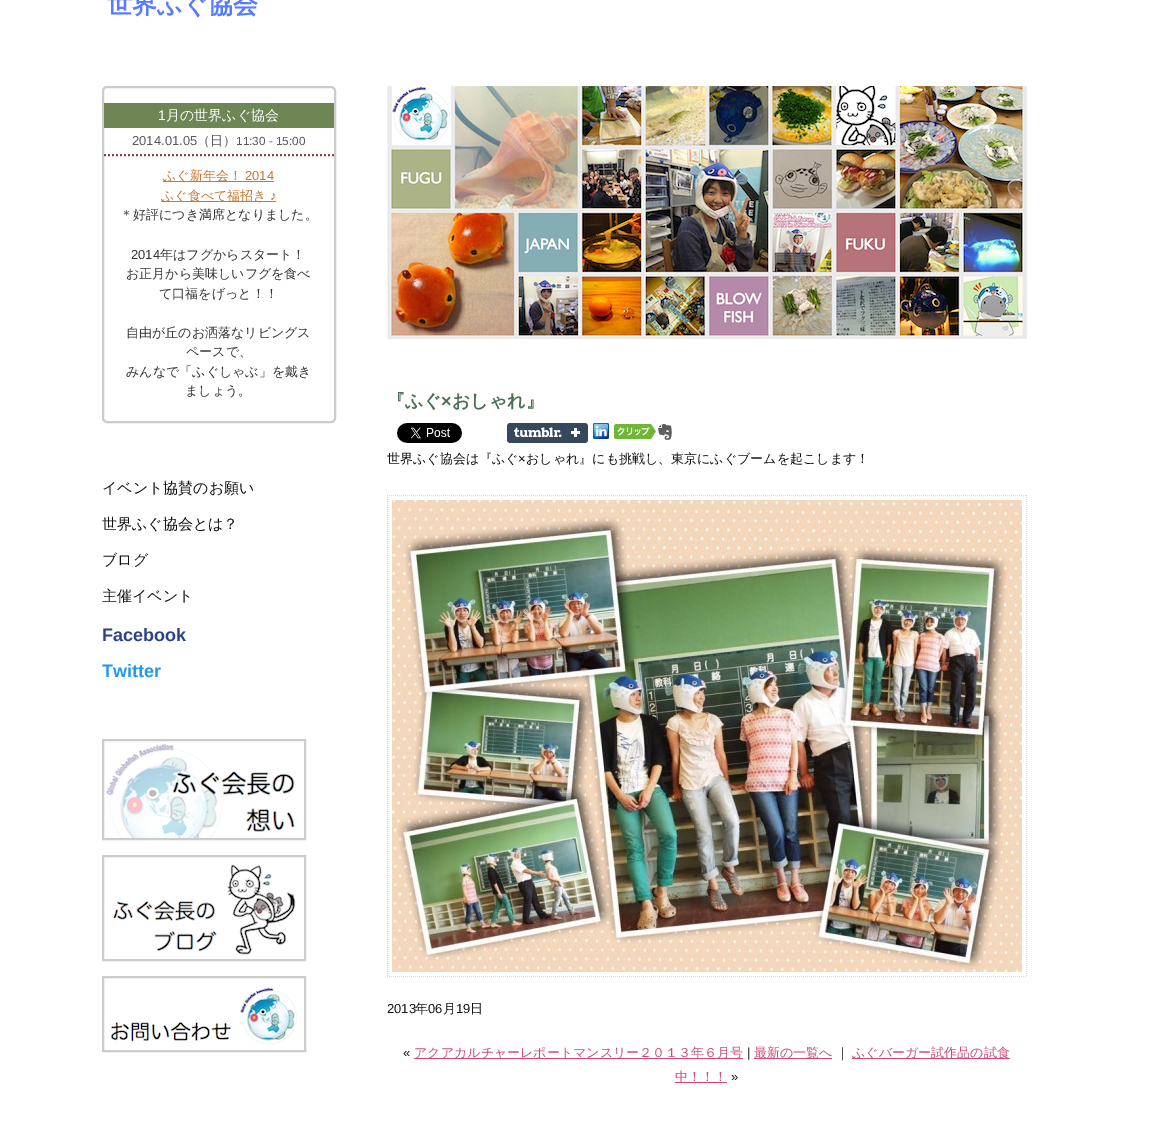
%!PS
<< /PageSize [1163 1133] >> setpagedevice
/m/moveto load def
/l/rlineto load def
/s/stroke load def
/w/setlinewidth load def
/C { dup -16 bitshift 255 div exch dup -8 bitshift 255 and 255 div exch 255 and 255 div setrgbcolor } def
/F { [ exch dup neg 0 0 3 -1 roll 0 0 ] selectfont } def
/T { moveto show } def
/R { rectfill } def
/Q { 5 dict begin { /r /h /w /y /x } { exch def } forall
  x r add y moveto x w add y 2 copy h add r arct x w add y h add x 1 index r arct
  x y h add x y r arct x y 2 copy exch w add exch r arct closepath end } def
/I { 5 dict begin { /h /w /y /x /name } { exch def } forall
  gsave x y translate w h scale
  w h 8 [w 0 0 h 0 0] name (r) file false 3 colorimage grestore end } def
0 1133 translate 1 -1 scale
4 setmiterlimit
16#FFFFFF C
0 0 1163 1133 R
/WenQuanYiZenHei-Bold 25 F
16#567BFF C
(世界ふぐ協会) 107 13 T
16#CCCCCC C
2 w
103 87 232 335 4 Q s
16#6E8554 C
104 103 230 25 R
/LiberationSans-Regular 14 F
16#FFFFFF C
(1) 158 120 T
/WenQuanYiZenHei-Medium 14 F
(月の世界ふぐ協会) 166 120 T
/LiberationSans-Regular 13 F
16#575B53 C
(2014.01.05) 132 145 T
/WenQuanYiZenHei-Medium 13 F
(（日）) 197 145 T
/LiberationSans-Regular 11.75 F
(11:30 - 15:00) 236 145 T
16#86454A C
[2 2] 0 setdash
104 155 m 230 0 l s
16#C87631 C
163 181 111 1 R
/WenQuanYiZenHei-Medium 13 F
(ふぐ新年会！) 163 180 T
/LiberationSans-Regular 13 F
(2014) 245 180 T
161 201 115 1 R
/WenQuanYiZenHei-Medium 13 F
(ふぐ食べて福招き) 161 200 T
/LiberationSans-Regular 13 F
(♪) 270 200 T
/WenQuanYiZenHei-Medium 13 F
16#333333 C
(＊好評につき満席となりました。) 120 219 T
/LiberationSans-Regular 13 F
(2014) 131 259 T
/WenQuanYiZenHei-Medium 13 F
(年はフグからスタート！) 160 259 T
(お正月から美味しいフグを食べ) 126 278 T
(て口福をげっと！！) 159 298 T
(自由が丘のお洒落なリビングス) 126 337 T
(ペースで、) 186 356 T
(みんなで「ふぐしゃぶ」を戴き) 126 376 T
(ましょう。) 185 395 T
/WenQuanYiZenHei-Medium 15 F
16#111111 C
(イベント協賛のお願い) 102 493 T
(世界ふぐ協会とは？) 102 529 T
(ブログ) 102 565 T
(主催イベント) 102 601 T
/LiberationSans-Bold 18 F
16#2C4386 C
(Facebook) 102 641 T
16#1E9BE6 C
(Twitter) 102 677 T
16#CCCCCC C
[] 0 setdash
103 740 202 99 rectstroke
(1.rgb) 106 743 189 95 I
103 856 202 104 rectstroke
(2.rgb) 113 864 183 91 I
103 977 202 74 rectstroke
(3.rgb) 110 987 187 58 I
(4.rgb) 387 86 640 253 I
/WenQuanYiZenHei-Bold 18 F
16#476F53 C
(『ふぐ) 387 407 T
/LiberationSans-Bold 18 F
(×) 441 407 T
/WenQuanYiZenHei-Bold 18 F
(おしゃれ』) 452 407 T
(5.rgb) 397 423 65 20 I
(6.rgb) 507 423 81 20 I
(7.rgb) 593 423 16 16 I
(8.rgb) 614 424 58 16 I
/WenQuanYiZenHei-Medium 13 F
16#111111 C
(世界ふぐ協会は『ふぐ) 387 463 T
/LiberationSans-Regular 13 F
(×) 518 463 T
/WenQuanYiZenHei-Medium 13 F
(おしゃれ』にも挑戦し、東京にふぐブームを起こします！) 526 463 T
16#DDDDDD C
1 w
[1 1] 0 setdash
387 495.5 m 640 0 l s
387.5 495 m 0 482 l s
(9.rgb) 392 500 630 472 I
1026.5 495 m 0 482 l s
387 976.5 m 640 0 l s
/LiberationSans-Regular 13 F
16#111111 C
(2013) 387 1013 T
/WenQuanYiZenHei-Medium 13 F
(年) 415 1013 T
/LiberationSans-Regular 13 F
(06) 428 1013 T
/WenQuanYiZenHei-Medium 13 F
(月) 443 1013 T
/LiberationSans-Regular 13 F
(19) 456 1013 T
/WenQuanYiZenHei-Medium 13 F
(日) 470 1013 T
/LiberationSans-Regular 13 F
(«) 403 1057 T
16#CF487C C
414 1058 329 1 R
/WenQuanYiZenHei-Medium 13 F
(アクアカルチャーレポートマンスリー２０１３年６月号) 414 1057 T
/LiberationSans-Regular 13 F
16#111111 C
(|) 747 1057 T
16#CF487C C
754 1058 78 1 R
/WenQuanYiZenHei-Medium 13 F
(最新の一覧へ) 754 1057 T
16#111111 C
(｜) 836 1057 T
16#CF487C C
852 1058 158 1 R
(ふぐバーガー試作品の試食) 852 1057 T
675 1082 52 1 R
(中！！！) 675 1081 T
/LiberationSans-Regular 13 F
16#111111 C
(») 731 1081 T
showpage
